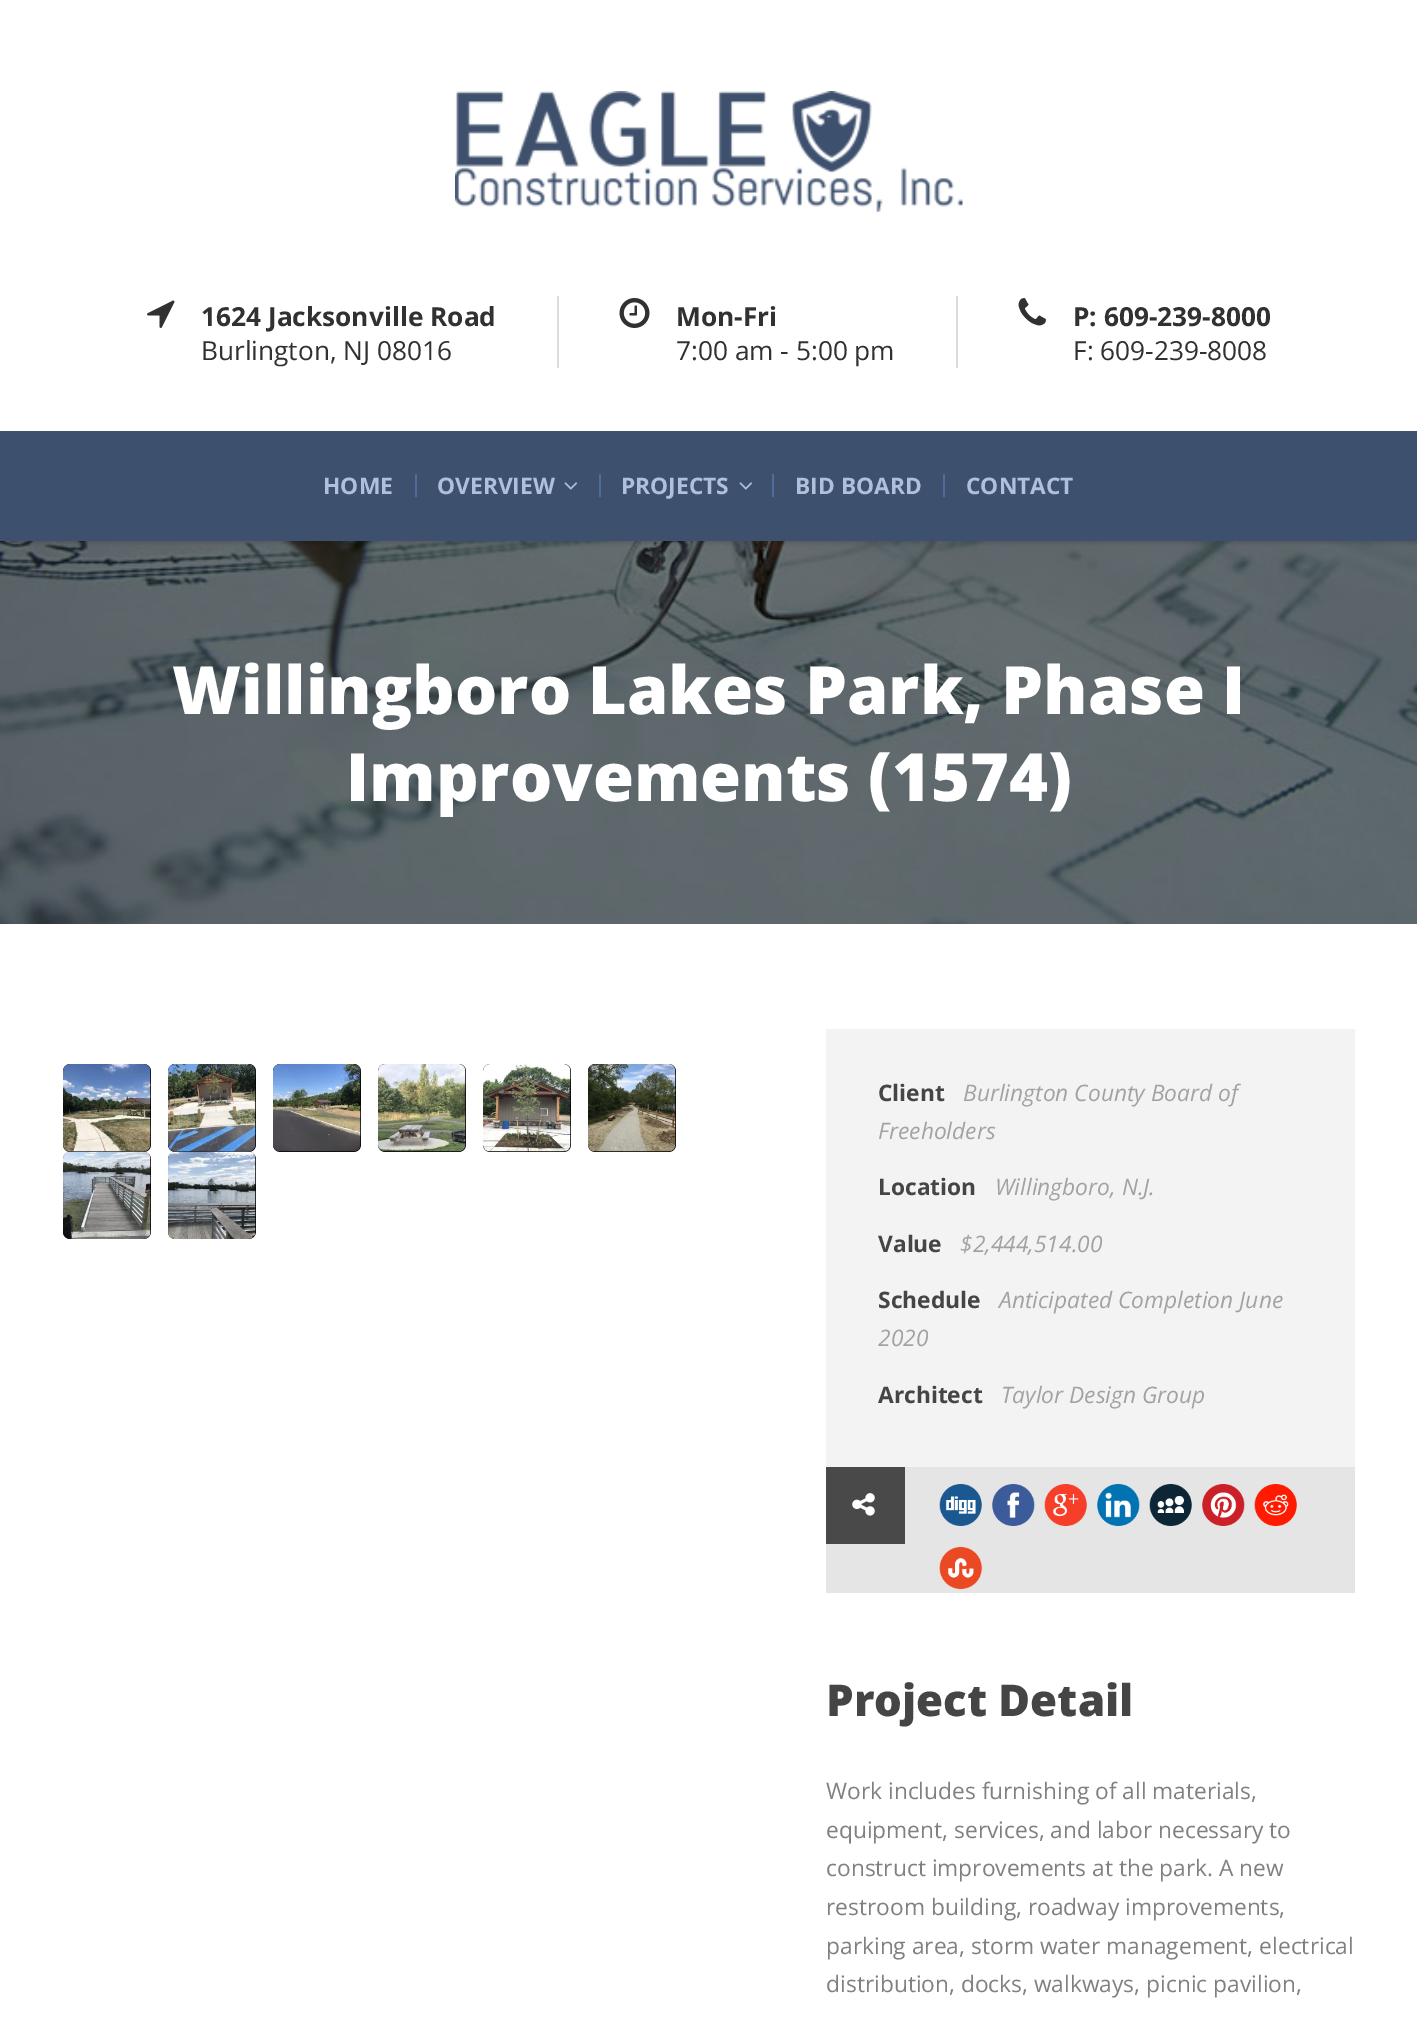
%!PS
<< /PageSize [1417 2019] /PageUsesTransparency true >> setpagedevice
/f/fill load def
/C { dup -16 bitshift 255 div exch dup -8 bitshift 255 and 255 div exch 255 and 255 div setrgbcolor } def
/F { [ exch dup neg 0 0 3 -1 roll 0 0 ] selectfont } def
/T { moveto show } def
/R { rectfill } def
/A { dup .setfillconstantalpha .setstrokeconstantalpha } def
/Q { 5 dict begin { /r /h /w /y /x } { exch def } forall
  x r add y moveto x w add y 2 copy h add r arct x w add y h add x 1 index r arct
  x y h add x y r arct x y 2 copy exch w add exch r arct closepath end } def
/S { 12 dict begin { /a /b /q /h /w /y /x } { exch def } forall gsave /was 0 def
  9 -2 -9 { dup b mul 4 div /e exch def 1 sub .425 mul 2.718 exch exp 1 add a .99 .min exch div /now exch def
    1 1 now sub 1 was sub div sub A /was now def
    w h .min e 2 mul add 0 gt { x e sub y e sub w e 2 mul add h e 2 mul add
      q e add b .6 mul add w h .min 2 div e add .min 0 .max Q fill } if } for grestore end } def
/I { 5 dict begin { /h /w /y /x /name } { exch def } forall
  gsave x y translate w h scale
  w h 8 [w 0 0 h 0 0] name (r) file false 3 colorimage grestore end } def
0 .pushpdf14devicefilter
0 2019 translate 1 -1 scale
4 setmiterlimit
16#FFFFFF C
0 0 1417 2019 R
(1.rgb) 455 91 508 121 I
(2.rgb) 147 300 28 28 I
/OpenSans-Bold 26.25 F
16#313131 C
(1624 Jacksonville Road) 201 326 T
/OpenSans-Regular 26.25 F
(Burlington, NJ 08016) 201 360 T
16#DCDCDC C
557 296 2 72 R
(3.rgb) 619 298 31 30 I
/OpenSans-Bold 26.25 F
16#313131 C
(Mon-Fri) 676 326 T
/OpenSans-Regular 26.25 F
(7:00 am - 5:00 pm) 676 360 T
16#DCDCDC C
956 296 2 72 R
(4.rgb) 1018 298 28 28 I
/OpenSans-Bold 26.25 F
16#313131 C
(P: 609-239-8000) 1073 326 T
/OpenSans-Regular 26.25 F
(F: 609-239-8008) 1073 360 T
(6.rgb) 0 541 1417 383 I
16#000000 C
0 434 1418 110 0 2 .12 S
16#3D506D C
0 431 1417 110 R
/OpenSans-Bold 22.75 F
16#AEC0DC C
(HOME) 323 494 T
16#506C98 C
415 474 2 23 R
16#AEC0DC C
(OVERVIEW) 437 494 T
(5.rgb) 564 482 14 8 I
16#506C98 C
599 474 2 23 R
16#AEC0DC C
(PROJECTS) 621 494 T
(5.rgb) 739 482 14 8 I
16#506C98 C
772 474 2 23 R
16#AEC0DC C
(BID BOARD) 795 494 T
16#506C98 C
943 474 2 23 R
16#AEC0DC C
(CONTACT) 966 494 T
/OpenSans-ExtraBold 66.5 F
16#FFFFFF C
(Willingboro Lakes Park, Phase I) 172 714 T
(Improvements \(1574\)) 346 801 T
16#000000 C
63 1064 88 88 7 Q f
(7.rgb) 63 1064 88 88 I
168 1064 88 88 7 Q f
(8.rgb) 168 1064 88 88 I
273 1064 88 88 7 Q f
(9.rgb) 273 1064 88 88 I
378 1064 88 88 7 Q f
(10.rgb) 378 1064 88 88 I
483 1064 88 88 7 Q f
(11.rgb) 483 1064 88 88 I
588 1064 88 88 7 Q f
(12.rgb) 588 1064 88 88 I
63 1152 88 87 7 Q f
(13.rgb) 63 1151 88 88 I
168 1152 88 87 7 Q f
(14.rgb) 168 1151 88 88 I
16#F3F3F3 C
826 1029 529 438 R
/OpenSans-Bold 22.75 F
16#454545 C
(Client) 878 1101 T
/OpenSans-Italic 22.75 F
16#A2A2A2 C
(Burlington County Board of) 963 1101 T
(Freeholders) 878 1139 T
/OpenSans-Bold 22.75 F
16#454545 C
(Location) 878 1195 T
/OpenSans-Italic 22.75 F
16#A2A2A2 C
(Willingboro, N.J.) 995 1195 T
/OpenSans-Bold 22.75 F
16#454545 C
(Value) 878 1252 T
/OpenSans-Italic 22.75 F
16#A2A2A2 C
($2,444,514.00) 960 1252 T
/OpenSans-Bold 22.75 F
16#454545 C
(Schedule) 878 1308 T
/OpenSans-Italic 22.75 F
16#A2A2A2 C
(Anticipated Completion June) 999 1308 T
(2020) 878 1346 T
/OpenSans-Bold 22.75 F
16#454545 C
(Architect) 878 1403 T
/OpenSans-Italic 22.75 F
16#A2A2A2 C
(Taylor Design Group) 1001 1403 T
16#E5E5E5 C
826 1467 529 126 R
16#494949 C
826 1467 79 77 R
(15.rgb) 852 1493 23 23 I
(16.rgb) 939 1484 43 42 I
(17.rgb) 992 1484 43 42 I
(18.rgb) 1044 1484 43 42 I
(19.rgb) 1097 1484 43 42 I
(20.rgb) 1149 1484 43 42 I
(21.rgb) 1202 1484 43 42 I
(22.rgb) 1254 1484 43 42 I
(23.rgb) 939 1547 43 42 I
/OpenSans-ExtraBold 43.75 F
16#454545 C
(Project Detail) 826 1716 T
/OpenSans-Regular 22.75 F
16#808080 C
(Work includes furnishing of all materials,) 826 1799 T
(equipment, services, and labor necessary to) 826 1838 T
(construct improvements at the park. A new) 826 1876 T
(restroom building, roadway improvements,) 826 1915 T
(parking area, storm water management, electrical) 826 1954 T
(distribution, docks, walkways, picnic pavilion,) 826 1992 T
.poppdf14devicefilter showpage
